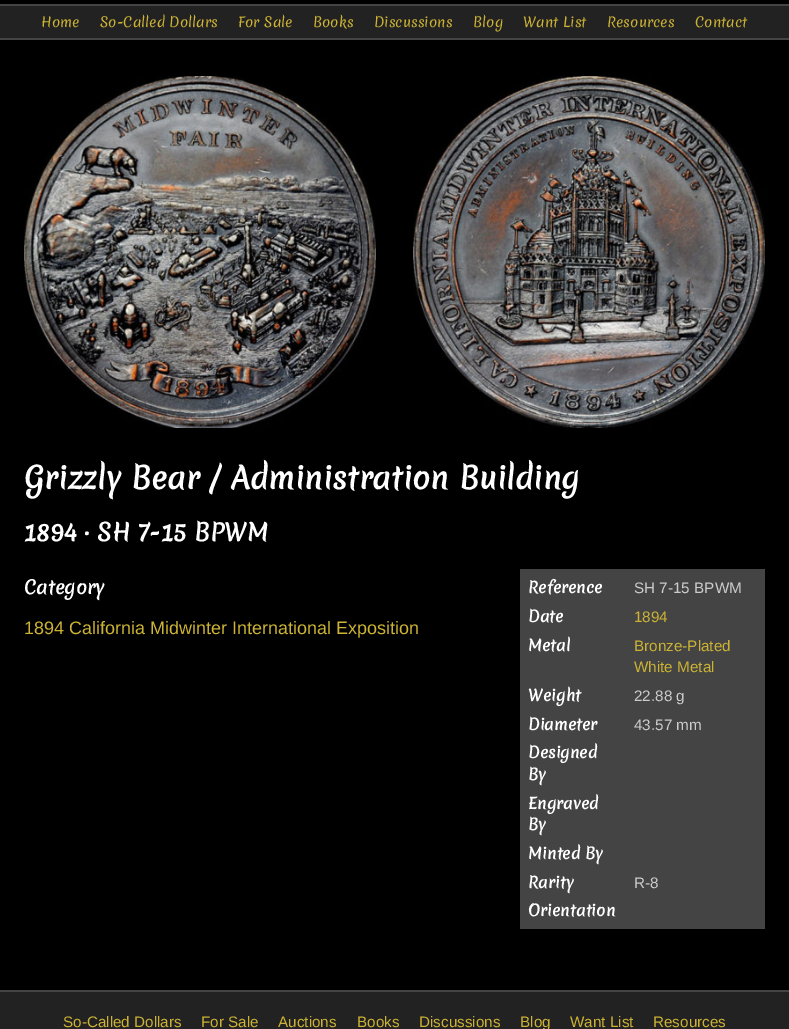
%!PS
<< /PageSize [789 1029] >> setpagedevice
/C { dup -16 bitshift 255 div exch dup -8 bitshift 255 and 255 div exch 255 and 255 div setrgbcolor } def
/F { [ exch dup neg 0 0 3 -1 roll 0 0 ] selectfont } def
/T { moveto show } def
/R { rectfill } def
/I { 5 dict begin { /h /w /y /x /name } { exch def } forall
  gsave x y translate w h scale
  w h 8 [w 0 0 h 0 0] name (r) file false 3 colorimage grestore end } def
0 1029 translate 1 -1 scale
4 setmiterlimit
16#000000 C
0 0 789 1029 R
16#222222 C
0 6 789 32 R
16#444444 C
0 4 789 2 R
0 38 789 2 R
/Merienda-Regular 13.5 F
16#CCB335 C
(Home) 41 27 T
(So-Called Dollars) 100 27 T
(For Sale) 238 27 T
(Books) 313 27 T
(Discussions) 374 27 T
(Blog) 473 27 T
(Want List) 523 27 T
(Resources) 607 27 T
(Contact) 695 27 T
(1.rgb) 24 76 352 352 I
(2.rgb) 413 76 352 352 I
/Merienda-Bold 29.6 F
16#FFFFFF C
(Grizzly Bear / Administration Building) 24 489 T
/Merienda-Bold 23.25 F
(1894 · SH 7-15 BPWM) 24 541 T
/Merienda-Bold 18 F
(Category) 24 594 T
16#444444 C
520 569 245 360 R
/Merienda-Bold 15.25 F
16#FFFFFF C
(Reference) 528 593 T
/LiberationSans-Regular 15.25 F
16#CCCCCC C
(SH 7-15 BPWM) 634 593 T
/Merienda-Bold 15.25 F
16#FFFFFF C
(Date) 528 622 T
/LiberationSans-Regular 15.25 F
16#CCB335 C
(1894) 634 622 T
/Merienda-Bold 15.25 F
16#FFFFFF C
(Metal) 528 651 T
/LiberationSans-Regular 15.25 F
16#CCB335 C
(Bronze-Plated) 634 651 T
(White Metal) 634 672 T
/Merienda-Bold 15.25 F
16#FFFFFF C
(Weight) 528 701 T
/LiberationSans-Regular 15.25 F
16#CCCCCC C
(22.88 g) 634 701 T
/Merienda-Bold 15.25 F
16#FFFFFF C
(Diameter) 528 730 T
/LiberationSans-Regular 15.25 F
16#CCCCCC C
(43.57 mm) 634 730 T
/Merienda-Bold 15.25 F
16#FFFFFF C
(Designed) 528 758 T
(By) 528 780 T
(Engraved) 528 809 T
(By) 528 830 T
(Minted By) 528 859 T
(Rarity) 528 888 T
/LiberationSans-Regular 15.25 F
16#CCCCCC C
(R-8) 634 888 T
/Merienda-Bold 15.25 F
16#FFFFFF C
(Orientation) 528 916 T
/LiberationSans-Regular 18 F
16#CCB335 C
(1894 California Midwinter International Exposition) 24 634 T
16#222222 C
0 992 789 37 R
16#444444 C
0 990 789 2 R
/LiberationSans-Regular 15.25 F
16#CCB335 C
(So-Called Dollars) 63 1027 T
(For Sale) 201 1027 T
(Auctions) 278 1027 T
(Books) 357 1027 T
(Discussions) 419 1027 T
(Blog) 520 1027 T
(Want List) 570 1027 T
(Resources) 653 1027 T
showpage
